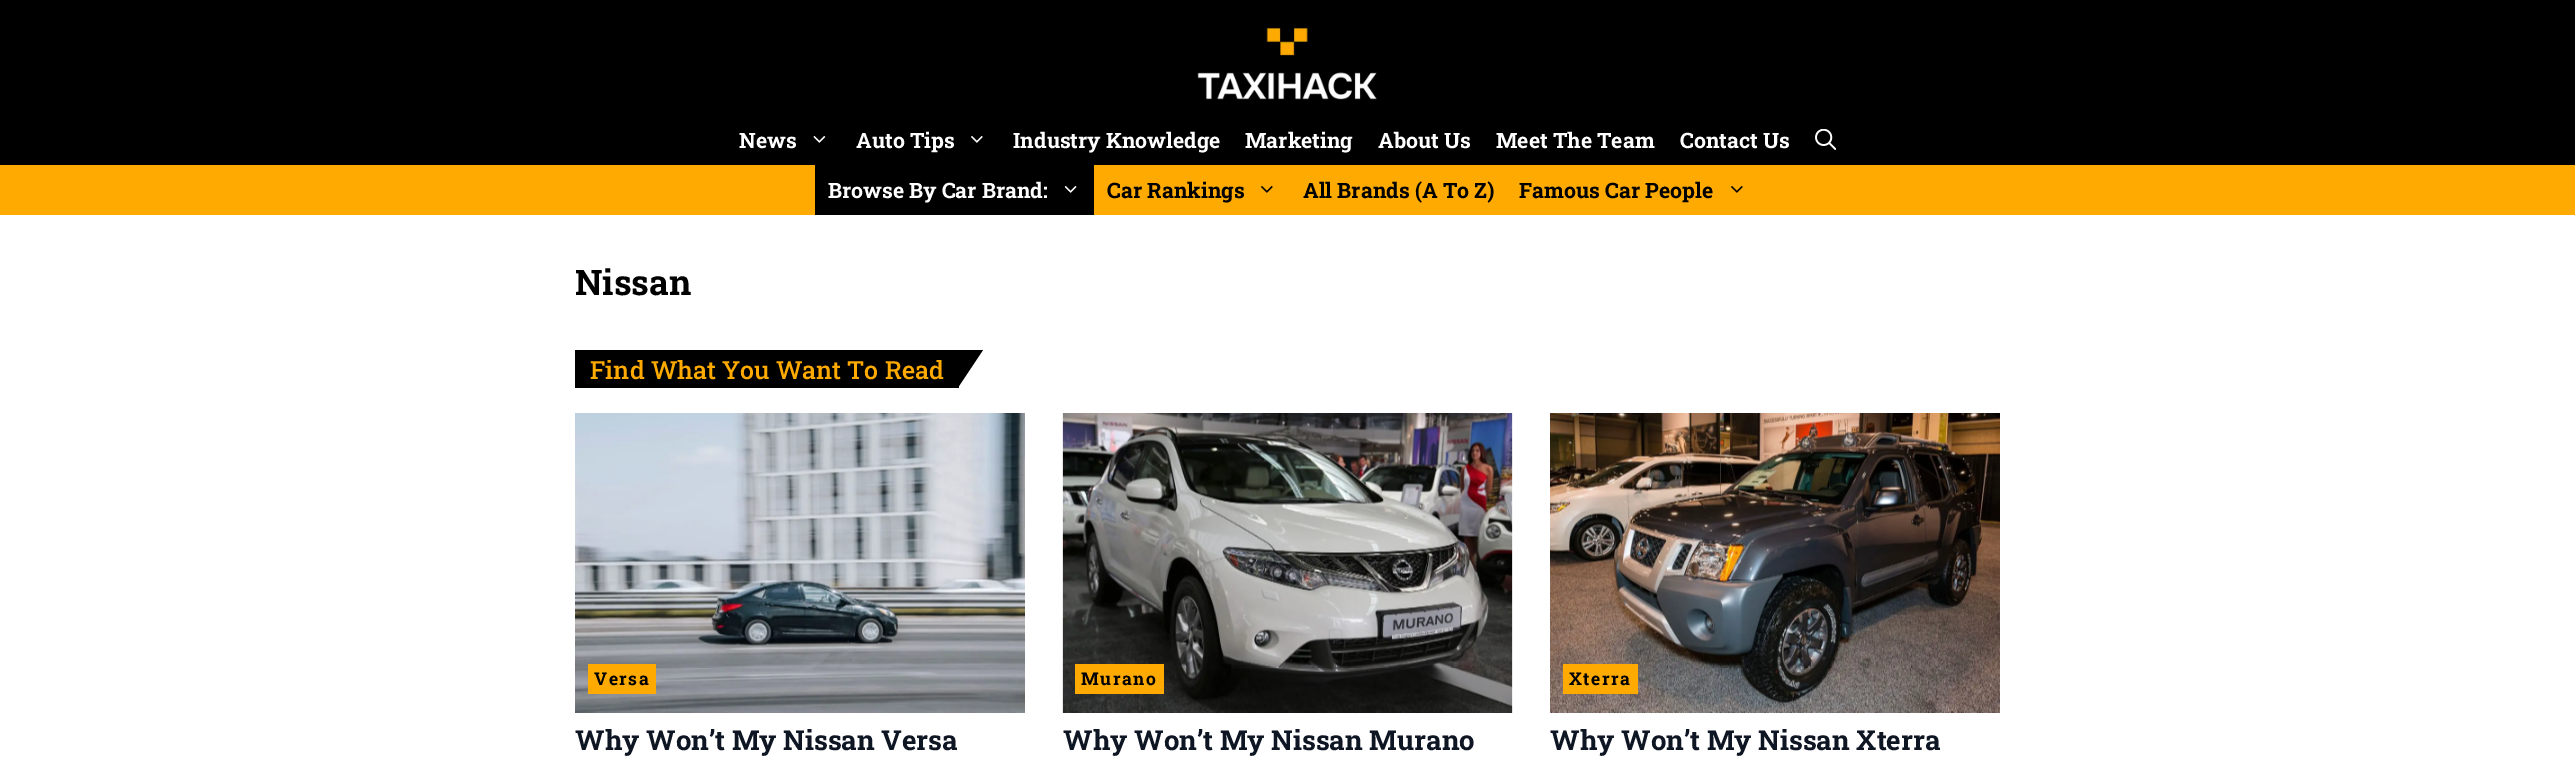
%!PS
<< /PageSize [2575 767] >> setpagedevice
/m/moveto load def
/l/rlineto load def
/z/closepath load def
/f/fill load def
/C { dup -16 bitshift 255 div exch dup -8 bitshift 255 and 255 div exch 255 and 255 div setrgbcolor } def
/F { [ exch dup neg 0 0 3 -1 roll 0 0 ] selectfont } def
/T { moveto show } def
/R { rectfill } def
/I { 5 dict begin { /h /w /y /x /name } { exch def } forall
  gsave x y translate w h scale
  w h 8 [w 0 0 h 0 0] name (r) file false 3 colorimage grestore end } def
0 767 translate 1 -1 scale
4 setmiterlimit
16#FFFFFF C
0 0 2575 767 R
16#000000 C
0 0 2575 165 R
(1.rgb) 1197 27 180 73 I
/RobotoSlab-Bold 21.25 F
16#FFFFFF C
(News) 739 148 T
(2.rgb) 813 136 13 7 I
(Auto Tips) 856 148 T
(3.rgb) 971 136 12 7 I
(Industry Knowledge) 1013 148 T
(Marketing) 1245 148 T
(About Us) 1378 148 T
(Meet The Team) 1496 148 T
(Contact Us) 1680 148 T
(4.rgb) 1815 129 21 21 I
16#FEAA01 C
0 165 2575 50 R
16#000000 C
815 165 279 50 R
16#FFFFFF C
(Browse By Car Brand:) 828 198 T
(5.rgb) 1064 186 13 7 I
16#000000 C
(Car Rankings) 1107 198 T
(6.rgb) 1261 186 12 7 I
(All Brands \(A To Z\)) 1303 198 T
(Famous Car People) 1519 198 T
(6.rgb) 1731 186 12 7 I
/RobotoSlab-Bold 35 F
(Nissan) 575 295 T
575 350 384 38 R
/RobotoSlab-Medium 25 F
16#FEAA01 C
(Find What You Want To Read) 590 379 T
16#000000 C
958 350 m 0 37.5 l 25 -37.5 l z f
(7.rgb) 575 413 450 300 I
16#FEAA01 C
588 664 68 30 R
/RobotoSlab-Bold 17.5 F
16#000000 C
594 685 m 1.5 0 (Versa) ashow
/RobotoSlab-Bold 27.5 F
16#0E1523 C
(Why Won’t My Nissan Versa) 575 750 T
(8.rgb) 1062 413 451 300 I
16#FEAA01 C
1075 664 89 30 R
/RobotoSlab-Bold 17.5 F
16#000000 C
1081 685 m 1.5 0 (Murano) ashow
/RobotoSlab-Bold 27.5 F
16#0E1523 C
(Why Won’t My Nissan Murano) 1063 750 T
(9.rgb) 1550 413 450 300 I
16#FEAA01 C
1563 664 75 30 R
/RobotoSlab-Bold 17.5 F
16#000000 C
1569 685 m 1.5 0 (Xterra) ashow
/RobotoSlab-Bold 27.5 F
16#0E1523 C
(Why Won’t My Nissan Xterra) 1550 750 T
showpage
